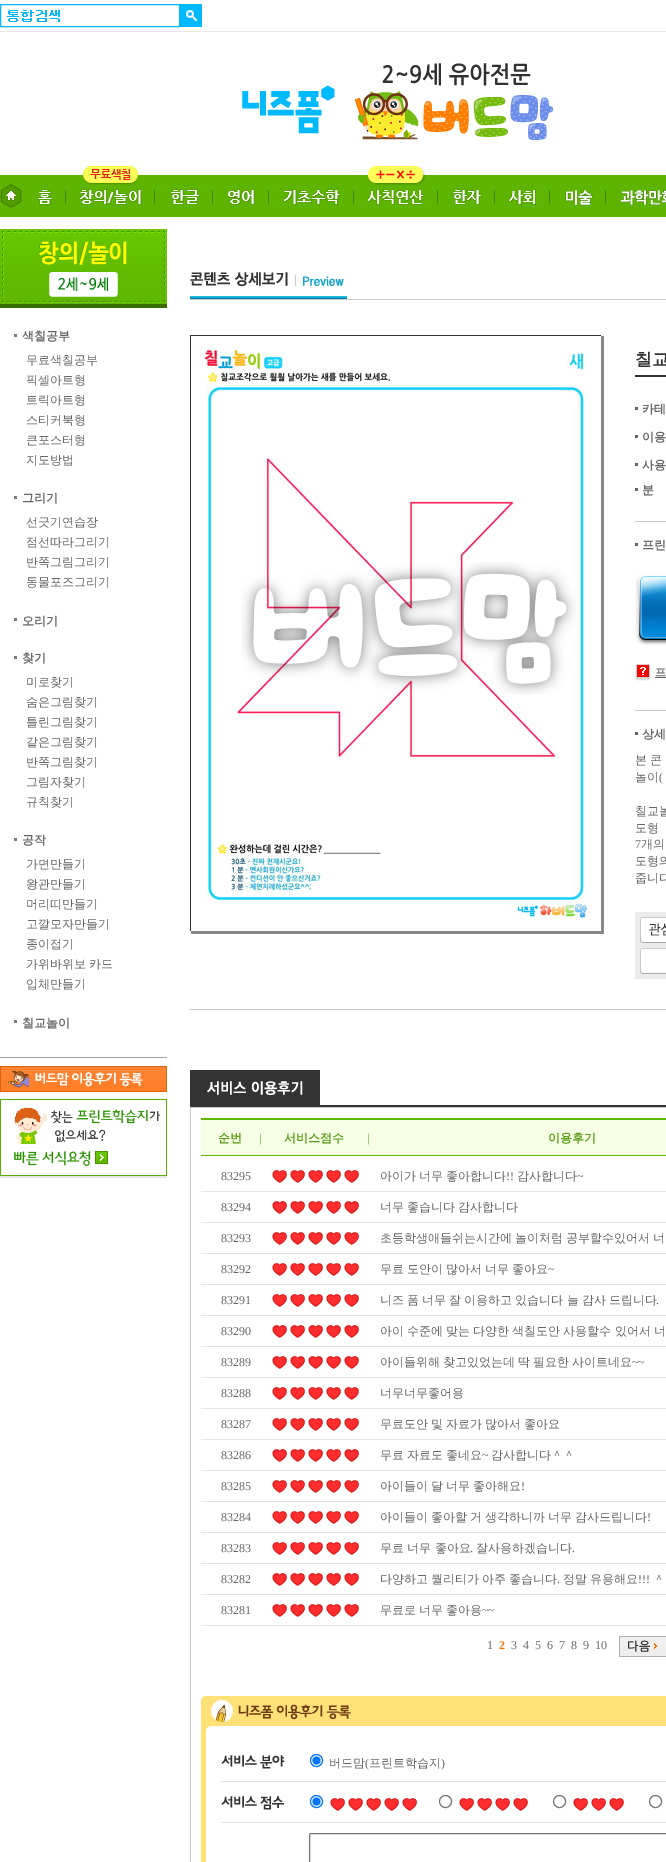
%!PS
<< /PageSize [666 1862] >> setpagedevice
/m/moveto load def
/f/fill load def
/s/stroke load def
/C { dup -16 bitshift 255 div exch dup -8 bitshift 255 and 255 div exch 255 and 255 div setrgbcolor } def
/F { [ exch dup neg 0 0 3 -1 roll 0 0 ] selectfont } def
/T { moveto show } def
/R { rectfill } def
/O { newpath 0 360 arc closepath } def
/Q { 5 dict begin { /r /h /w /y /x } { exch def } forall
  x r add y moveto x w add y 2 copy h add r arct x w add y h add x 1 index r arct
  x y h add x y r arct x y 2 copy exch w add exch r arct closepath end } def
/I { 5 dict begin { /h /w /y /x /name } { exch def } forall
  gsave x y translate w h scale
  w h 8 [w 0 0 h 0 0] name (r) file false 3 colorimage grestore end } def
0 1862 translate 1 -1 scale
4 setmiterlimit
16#FFFFFF C
0 0 666 1862 R
(1.rgb) 7 10 53 12 I
16#00B9FF C
.5 4.5 179 22 rectstroke
(2.rgb) 180 4 22 23 I
16#E7E7E7 C
0 31 666 1 R
(3.rgb) 242 85 93 49 I
(4.rgb) 355 63 198 77 I
16#5EB501 C
0 175 666 42 R
(5.rgb) 0 184 66 24 I
(6.rgb) 79 166 76 39 I
(7.rgb) 170 189 43 16 I
(8.rgb) 227 189 42 16 I
(9.rgb) 283 189 71 16 I
(10.rgb) 367 166 71 39 I
(11.rgb) 452 189 43 16 I
(12.rgb) 508 189 42 16 I
(13.rgb) 565 190 41 16 I
(14.rgb) 620 190 46 16 I
(15.rgb) 0 229 167 79 I
16#7C7C7C C
14 334 3 3 R
/WenQuanYiZenHei-Bold 12 F
16#666666 C
(색칠공부) 22 340 T
/WenQuanYiZenHei-Medium 12 F
(무료색칠공부) 26 364 T
(픽셀아트형) 26 384 T
(트릭아트형) 26 404 T
(스티커북형) 26 424 T
(큰포스터형) 26 444 T
(지도방법) 26 464 T
16#7C7C7C C
14 496 3 3 R
/WenQuanYiZenHei-Bold 12 F
16#666666 C
(그리기) 22 502 T
/WenQuanYiZenHei-Medium 12 F
(선긋기연습장) 26 526 T
(점선따라그리기) 26 546 T
(반쪽그림그리기) 26 566 T
(동물포즈그리기) 26 586 T
16#7C7C7C C
14 618 3 3 R
/WenQuanYiZenHei-Bold 12 F
16#666666 C
(오리기) 22 625 T
16#7C7C7C C
14 656 3 3 R
16#666666 C
(찾기) 22 662 T
/WenQuanYiZenHei-Medium 12 F
(미로찾기) 26 686 T
(숨은그림찾기) 26 706 T
(틀린그림찾기) 26 726 T
(같은그림찾기) 26 746 T
(반쪽그림찾기) 26 766 T
(그림자찾기) 26 786 T
(규칙찾기) 26 806 T
16#7C7C7C C
14 838 3 3 R
/WenQuanYiZenHei-Bold 12 F
16#666666 C
(공작) 22 844 T
/WenQuanYiZenHei-Medium 12 F
(가면만들기) 26 868 T
(왕관만들기) 26 888 T
(머리띠만들기) 26 908 T
(고깔모자만들기) 26 928 T
(종이접기) 26 948 T
26 968 m -.5 0 32 (가위바위보 카드) widthshow
(입체만들기) 26 988 T
16#7C7C7C C
14 1020 3 3 R
/WenQuanYiZenHei-Bold 12 F
16#666666 C
(칠교놀이) 22 1027 T
16#A5A4A4 C
0 1057 167 1 R
(16.rgb) 0 1066 167 26 I
(17.rgb) 0 1099 167 79 I
(18.rgb) 190 272 157 27 I
16#C9C9C9 C
190 299 476 1 R
16#333333 C
190 335 411 1 R
190 336 1 595 R
(19.rgb) 199 344 392 576 I
(20.rgb) 241 562 335 133 I
16#888888 C
601 336 3 595 R
191 931 413 3 R
/WenQuanYiZenHei-Bold 17 F
16#333333 C
(칠교) 635 365 T
635 375 31 2 R
/WenQuanYiZenHei-Bold 12 F
16#666666 C
(카테) 642 413 T
635 407 3 3 R
(이용) 642 441 T
635 435 3 3 R
(사용) 642 469 T
635 463 3 3 R
(분) 642 494 T
635 488 3 3 R
16#C9C9C9 C
635 521 31 1 R
16#666666 C
(프린) 642 549 T
635 543 3 3 R
(21.rgb) 635 571 31 74 I
(22.rgb) 635 664 16 17 I
/WenQuanYiZenHei-Bold 11 F
655 676 m -1 0 32 -1 0 (프) awidthshow
655 677 11 1 R
16#C9C9C9 C
635 710 31 1 R
/WenQuanYiZenHei-Bold 12 F
16#666666 C
(상세) 642 738 T
635 732 3 3 R
/WenQuanYiZenHei-Medium 12 F
635 764 m -.5 0 32 (본 콘) widthshow
(놀이) 635 781 T
/LiberationSerif-Regular 12 F
(\() 659 781 T
/WenQuanYiZenHei-Medium 12 F
(칠교놀) 635 815 T
635 832 m -.5 0 32 (도형) widthshow
/LiberationSerif-Regular 12 F
(7) 635 848 T
/WenQuanYiZenHei-Medium 12 F
641 848 m -.5 0 32 (개의) widthshow
(도형의) 635 865 T
(줍니다) 635 882 T
16#EBEBEB C
635 912 31 67 R
(23.rgb) 640 917 26 26 I
(24.rgb) 640 948 26 26 I
16#C9C9C9 C
190 1009 476 1 R
(25.rgb) 190 1070 130 35 I
16#333333 C
190 1105 476 2 R
16#C9C9C9 C
190 1107 476 755 R
16#FFFFFF C
191 1108 475 754 R
16#5EB600 C
201 1118 465 2 R
16#F6FFE6 C
201 1120 465 35 R
/WenQuanYiZenHei-Bold 12 F
16#5C9C18 C
(순번) 218 1142 T
/LiberationSerif-Regular 12 F
(|) 259 1142 T
/WenQuanYiZenHei-Bold 12 F
(서비스점수) 284 1142 T
/LiberationSerif-Regular 12 F
(|) 367 1142 T
/WenQuanYiZenHei-Bold 12 F
(이용후기) 548 1142 T
16#5EB600 C
201 1155 465 1 R
/LiberationSerif-Regular 12 F
16#666666 C
(83295) 221 1180 T
(26.rgb) 272 1170 15 13 I
(26.rgb) 290 1170 15 13 I
(26.rgb) 308 1170 15 13 I
(26.rgb) 326 1170 15 13 I
(26.rgb) 344 1170 15 13 I
/WenQuanYiZenHei-Medium 12 F
380 1180 m -.5 0 32 (아이가 너무 좋아합니다) widthshow
/LiberationSerif-Regular 12 F
(!!) 506 1180 T
/WenQuanYiZenHei-Medium 12 F
(감사합니다) 517 1180 T
/LiberationSerif-Regular 12 F
(~) 577 1180 T
16#E4E4E4 C
201 1191 465 1 R
16#666666 C
(83294) 221 1211 T
(26.rgb) 272 1201 15 13 I
(26.rgb) 290 1201 15 13 I
(26.rgb) 308 1201 15 13 I
(26.rgb) 326 1201 15 13 I
(26.rgb) 344 1201 15 13 I
/WenQuanYiZenHei-Medium 12 F
380 1211 m -.5 0 32 (너무 좋습니다 감사합니다) widthshow
16#E4E4E4 C
201 1222 465 1 R
/LiberationSerif-Regular 12 F
16#666666 C
(83293) 221 1242 T
(26.rgb) 272 1232 15 13 I
(26.rgb) 290 1232 15 13 I
(26.rgb) 308 1232 15 13 I
(26.rgb) 326 1232 15 13 I
(26.rgb) 344 1232 15 13 I
/WenQuanYiZenHei-Medium 12 F
380 1242 m -.5 0 32 (초등학생애들쉬는시간에 놀이처럼 공부할수있어서 너) widthshow
16#E4E4E4 C
201 1253 465 1 R
/LiberationSerif-Regular 12 F
16#666666 C
(83292) 221 1273 T
(26.rgb) 272 1263 15 13 I
(26.rgb) 290 1263 15 13 I
(26.rgb) 308 1263 15 13 I
(26.rgb) 326 1263 15 13 I
(26.rgb) 344 1263 15 13 I
/WenQuanYiZenHei-Medium 12 F
380 1273 m -.5 0 32 (무료 도안이 많아서 너무 좋아요) widthshow
/LiberationSerif-Regular 12 F
(~) 548 1273 T
16#E4E4E4 C
201 1284 465 1 R
16#666666 C
(83291) 221 1304 T
(26.rgb) 272 1294 15 13 I
(26.rgb) 290 1294 15 13 I
(26.rgb) 308 1294 15 13 I
(26.rgb) 326 1294 15 13 I
(26.rgb) 344 1294 15 13 I
/WenQuanYiZenHei-Medium 12 F
380 1304 m -.5 0 32 (니즈 폼 너무 잘 이용하고 있습니다 늘 감사 드립니다) widthshow
/LiberationSerif-Regular 12 F
(.) 656 1304 T
16#E4E4E4 C
201 1315 465 1 R
16#666666 C
(83290) 221 1335 T
(26.rgb) 272 1325 15 13 I
(26.rgb) 290 1325 15 13 I
(26.rgb) 308 1325 15 13 I
(26.rgb) 326 1325 15 13 I
(26.rgb) 344 1325 15 13 I
/WenQuanYiZenHei-Medium 12 F
380 1335 m -.5 0 32 (아이 수준에 맞는 다양한 색칠도안 사용할수 있어서 너) widthshow
16#E4E4E4 C
201 1346 465 1 R
/LiberationSerif-Regular 12 F
16#666666 C
(83289) 221 1366 T
(26.rgb) 272 1356 15 13 I
(26.rgb) 290 1356 15 13 I
(26.rgb) 308 1356 15 13 I
(26.rgb) 326 1356 15 13 I
(26.rgb) 344 1356 15 13 I
/WenQuanYiZenHei-Medium 12 F
380 1366 m -.5 0 32 (아이들위해 찾고있었는데 딱 필요한 사이트네요) widthshow
/LiberationSerif-Regular 12 F
(~~) 632 1366 T
16#E4E4E4 C
201 1377 465 1 R
16#666666 C
(83288) 221 1397 T
(26.rgb) 272 1387 15 13 I
(26.rgb) 290 1387 15 13 I
(26.rgb) 308 1387 15 13 I
(26.rgb) 326 1387 15 13 I
(26.rgb) 344 1387 15 13 I
/WenQuanYiZenHei-Medium 12 F
(너무너무좋어용) 380 1397 T
16#E4E4E4 C
201 1408 465 1 R
/LiberationSerif-Regular 12 F
16#666666 C
(83287) 221 1428 T
(26.rgb) 272 1418 15 13 I
(26.rgb) 290 1418 15 13 I
(26.rgb) 308 1418 15 13 I
(26.rgb) 326 1418 15 13 I
(26.rgb) 344 1418 15 13 I
/WenQuanYiZenHei-Medium 12 F
380 1428 m -.5 0 32 (무료도안 및 자료가 많아서 좋아요) widthshow
16#E4E4E4 C
201 1439 465 1 R
/LiberationSerif-Regular 12 F
16#666666 C
(83286) 221 1459 T
(26.rgb) 272 1449 15 13 I
(26.rgb) 290 1449 15 13 I
(26.rgb) 308 1449 15 13 I
(26.rgb) 326 1449 15 13 I
(26.rgb) 344 1449 15 13 I
/WenQuanYiZenHei-Medium 12 F
380 1459 m -.5 0 32 (무료 자료도 좋네요) widthshow
/LiberationSerif-Regular 12 F
(~) 482 1459 T
/WenQuanYiZenHei-Medium 12 F
(감사합니다＾＾) 491 1459 T
16#E4E4E4 C
201 1470 465 1 R
/LiberationSerif-Regular 12 F
16#666666 C
(83285) 221 1490 T
(26.rgb) 272 1480 15 13 I
(26.rgb) 290 1480 15 13 I
(26.rgb) 308 1480 15 13 I
(26.rgb) 326 1480 15 13 I
(26.rgb) 344 1480 15 13 I
/WenQuanYiZenHei-Medium 12 F
380 1490 m -.5 0 32 (아이들이 달 너무 좋아해요) widthshow
/LiberationSerif-Regular 12 F
(!) 521 1490 T
16#E4E4E4 C
201 1501 465 1 R
16#666666 C
(83284) 221 1521 T
(26.rgb) 272 1511 15 13 I
(26.rgb) 290 1511 15 13 I
(26.rgb) 308 1511 15 13 I
(26.rgb) 326 1511 15 13 I
(26.rgb) 344 1511 15 13 I
/WenQuanYiZenHei-Medium 12 F
380 1521 m -.5 0 32 (아이들이 좋아할 거 생각하니까 너무 감사드립니다) widthshow
/LiberationSerif-Regular 12 F
(!) 647 1521 T
16#E4E4E4 C
201 1532 465 1 R
16#666666 C
(83283) 221 1552 T
(26.rgb) 272 1542 15 13 I
(26.rgb) 290 1542 15 13 I
(26.rgb) 308 1542 15 13 I
(26.rgb) 326 1542 15 13 I
(26.rgb) 344 1542 15 13 I
/WenQuanYiZenHei-Medium 12 F
(무료) 380 1552 T
(너무 좋아요) 407 1552 T
/LiberationSerif-Regular 12 F
(.) 470 1552 T
/WenQuanYiZenHei-Medium 12 F
(잘사용하겠습니다) 476 1552 T
/LiberationSerif-Regular 12 F
(.) 572 1552 T
16#E4E4E4 C
201 1563 465 1 R
16#666666 C
(83282) 221 1583 T
(26.rgb) 272 1573 15 13 I
(26.rgb) 290 1573 15 13 I
(26.rgb) 308 1573 15 13 I
(26.rgb) 326 1573 15 13 I
(26.rgb) 344 1573 15 13 I
/WenQuanYiZenHei-Medium 12 F
380 1583 m -.5 0 32 (다양하고 퀄리티가 아주 좋습니다) widthshow
/LiberationSerif-Regular 12 F
(.) 557 1583 T
/WenQuanYiZenHei-Medium 12 F
563 1583 m -.5 0 32 (정말 유용해요) widthshow
/LiberationSerif-Regular 12 F
(!!!) 638 1583 T
/WenQuanYiZenHei-Medium 12 F
(＾) 653 1583 T
16#E4E4E4 C
201 1594 465 1 R
/LiberationSerif-Regular 12 F
16#666666 C
(83281) 221 1614 T
(26.rgb) 272 1604 15 13 I
(26.rgb) 290 1604 15 13 I
(26.rgb) 308 1604 15 13 I
(26.rgb) 326 1604 15 13 I
(26.rgb) 344 1604 15 13 I
/WenQuanYiZenHei-Medium 12 F
380 1614 m -.5 0 32 (무료로 너무 좋아용) widthshow
/LiberationSerif-Regular 12 F
(~~) 482 1614 T
16#E4E4E4 C
201 1625 465 1 R
16#666666 C
(1) 487 1649 T
/LiberationSerif-Bold 12 F
16#FB7000 C
(2) 499 1649 T
/LiberationSerif-Regular 12 F
16#666666 C
(3) 511 1649 T
(4) 523 1649 T
(5) 535 1649 T
(6) 547 1649 T
(7) 559 1649 T
(8) 571 1649 T
(9) 583 1649 T
(10) 595 1649 T
(27.rgb) 619 1636 47 21 I
(28.rgb) 201 1696 10 35 I
16#FFE178 C
211 1696 455 30 R
(29.rgb) 211 1700 140 22 I
201 1731 5 131 R
(30.rgb) 221 1755 64 14 I
16#0075FF C
316.5 1760.5 6 O s
316.5 1760.5 4 O f
/WenQuanYiZenHei-Medium 12 F
16#666666 C
(버드맘) 329 1767 T
/LiberationSerif-Regular 12 F
(\() 365 1767 T
/WenQuanYiZenHei-Medium 12 F
(프린트학습지) 369 1767 T
/LiberationSerif-Regular 12 F
(\)) 441 1767 T
16#E4E4E4 C
221 1781 445 1 R
(31.rgb) 221 1796 63 14 I
16#0075FF C
316.5 1801.5 6 O s
316.5 1801.5 4 O f
(26.rgb) 330 1798 15 13 I
(26.rgb) 348 1798 15 13 I
(26.rgb) 366 1798 15 13 I
(26.rgb) 384 1798 15 13 I
(26.rgb) 402 1798 15 13 I
16#767676 C
445.5 1801.5 6 O s
(26.rgb) 459 1798 15 13 I
(26.rgb) 477 1798 15 13 I
(26.rgb) 495 1798 15 13 I
(26.rgb) 513 1798 15 13 I
559.5 1801.5 6 O s
(26.rgb) 573 1798 15 13 I
(26.rgb) 591 1798 15 13 I
(26.rgb) 609 1798 15 13 I
655.5 1801.5 6 O s
16#E4E4E4 C
221 1822 445 1 R
16#767676 C
309.5 1833.5 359 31 1.5 Q s
showpage
